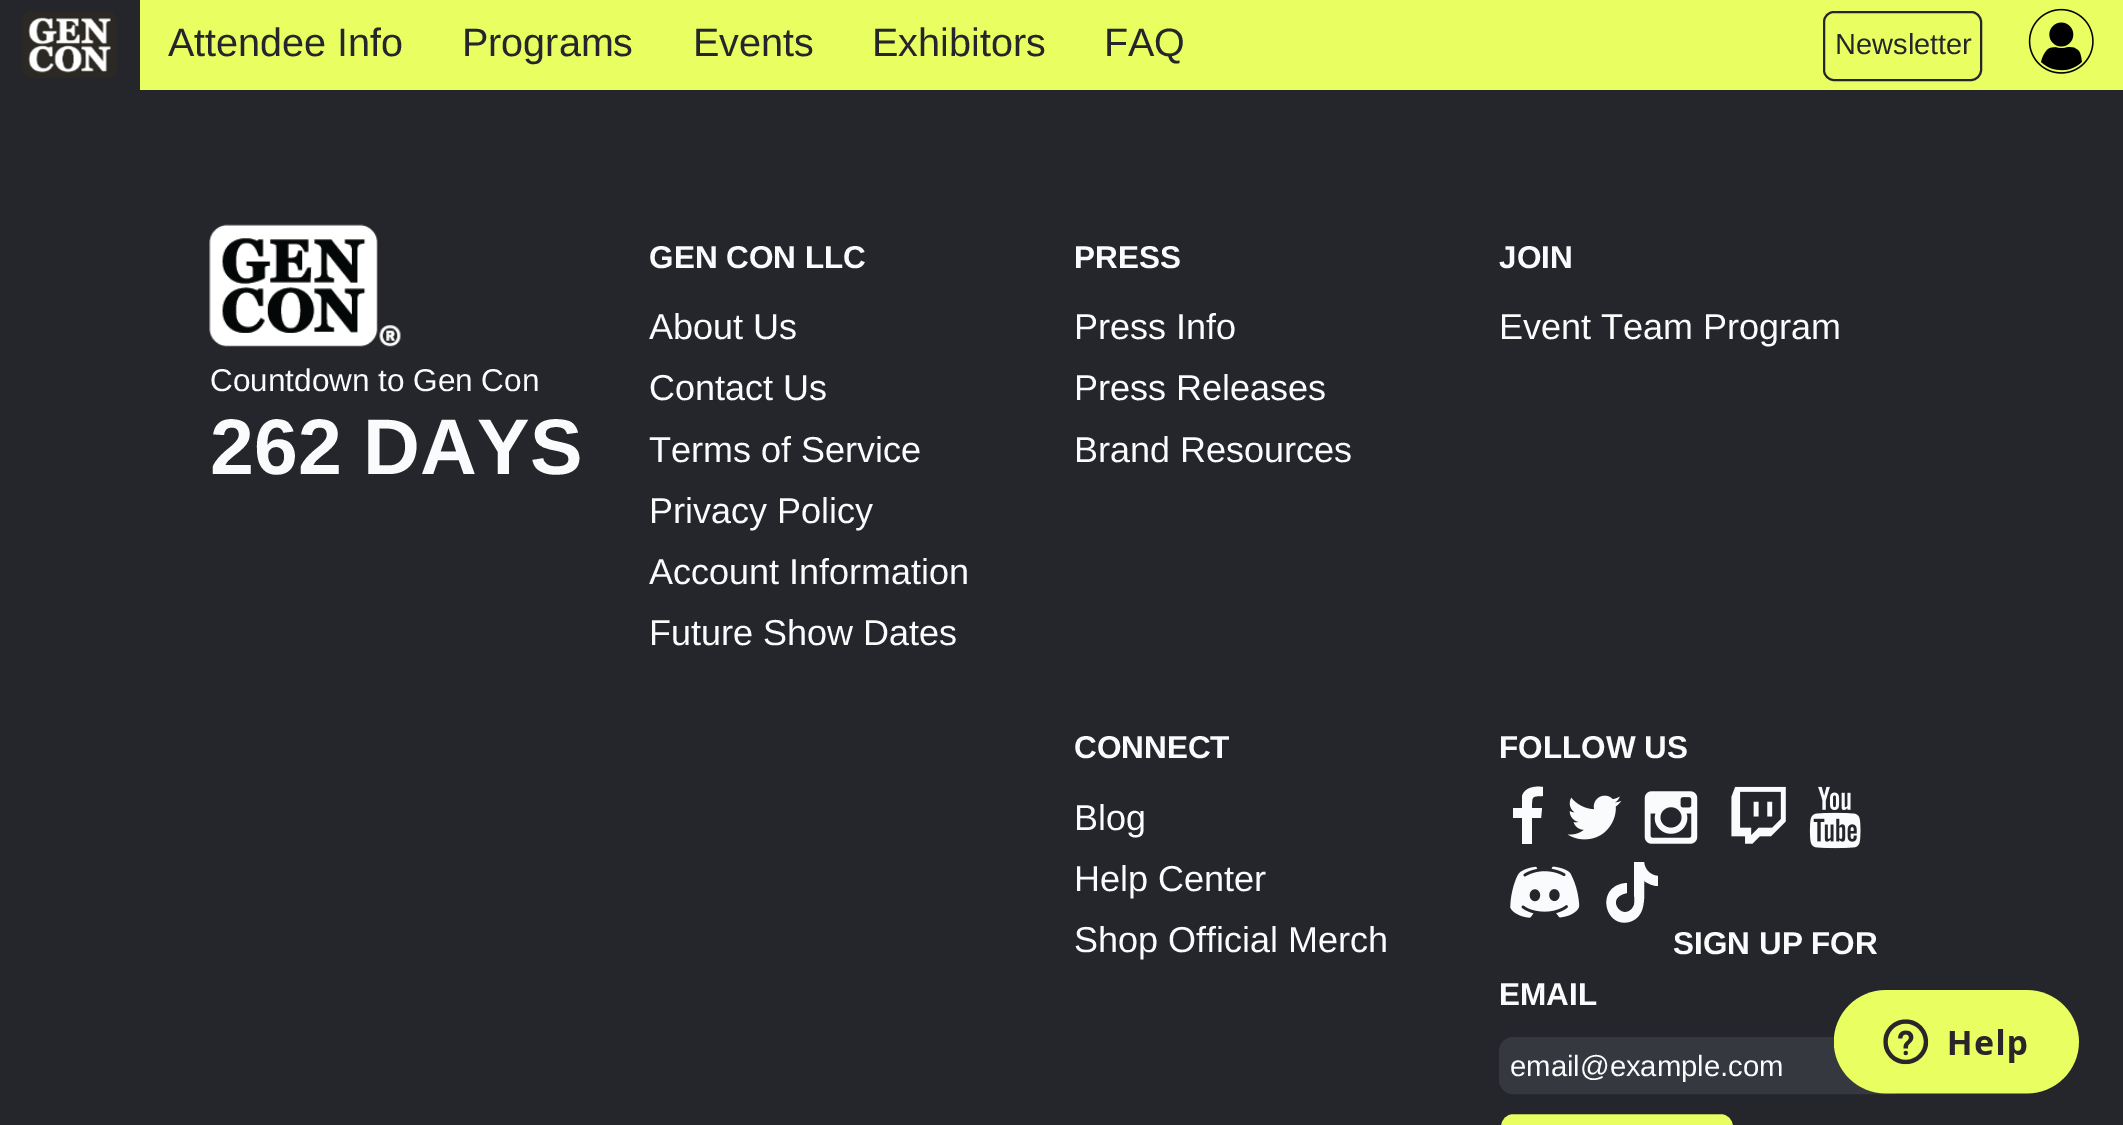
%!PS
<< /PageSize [2123 1125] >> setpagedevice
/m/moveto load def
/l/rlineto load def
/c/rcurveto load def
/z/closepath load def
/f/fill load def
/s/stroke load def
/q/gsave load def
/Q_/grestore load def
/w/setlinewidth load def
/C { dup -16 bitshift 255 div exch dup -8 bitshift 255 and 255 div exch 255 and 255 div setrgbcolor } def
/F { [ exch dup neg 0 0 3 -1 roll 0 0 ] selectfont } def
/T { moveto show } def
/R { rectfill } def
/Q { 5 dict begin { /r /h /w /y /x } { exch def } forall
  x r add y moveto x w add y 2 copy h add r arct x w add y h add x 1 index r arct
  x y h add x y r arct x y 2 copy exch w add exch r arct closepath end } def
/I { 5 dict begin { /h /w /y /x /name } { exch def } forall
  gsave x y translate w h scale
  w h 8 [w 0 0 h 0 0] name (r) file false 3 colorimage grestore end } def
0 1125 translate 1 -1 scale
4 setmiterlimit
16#24262B C
0 0 2123 1125 R
16#E9FE60 C
140 0 1983 90 R
(1.rgb) 22 11 95 67 I
/LiberationSans-Regular 39.5 F
16#24262B C
(Attendee Info) 168 56 T
(Programs) 462 56 T
(Events) 693 56 T
(Exhibitors) 872 56 T
(FAQ) 1104 56 T
2 w
1824 12 157 68 10 Q s
/LiberationSans-Regular 29 F
(Newsletter) 1835 54 T
(2.rgb) 2028 8 66 66 I
(3.rgb) 209 224 192 123 I
/LiberationSans-Regular 31.5 F
16#FAFBFC C
(Countdown to Gen Con) 210 391 T
/LiberationSans-Bold 78.75 F
(262 DAYS) 210 474 T
/LiberationSans-Bold 31.5 F
(GEN CON LLC) 649 268 T
/LiberationSans-Regular 36 F
(About Us) 649 339 T
(Contact Us) 649 400 T
(Terms of Service) 649 462 T
(Privacy Policy) 649 523 T
(Account Information) 649 584 T
(Future Show Dates) 649 645 T
/LiberationSans-Bold 31.5 F
(PRESS) 1074 268 T
/LiberationSans-Regular 36 F
(Press Info) 1074 339 T
(Press Releases) 1074 400 T
(Brand Resources) 1074 462 T
/LiberationSans-Bold 31.5 F
(JOIN) 1499 268 T
/LiberationSans-Regular 36 F
(Event Team Program) 1499 339 T
/LiberationSans-Bold 31.5 F
(CONNECT) 1074 758 T
/LiberationSans-Regular 36 F
(Blog) 1074 830 T
(Help Center) 1074 891 T
(Shop Official Merch) 1074 952 T
/LiberationSans-Bold 31.5 F
(FOLLOW US) 1499 758 T
1543 787 m 0 9 l -12 0 -11 1 -11 12 c 10 0 l -1 10 l -9 0 l 0 26 l -10 0 l 0 -26 l -9 0 l 0 -10 l 9 0 l 0 -12 l 3 -9 13 -10 21 -9 c z f
(4.rgb) 1567 795 55 45 I
(5.rgb) 1644 791 54 53 I
(6.rgb) 1731 786 55 58 I
(7.rgb) 1809 786 52 63 I
(8.rgb) 1510 866 70 52 I
1644 862 m 1 8 6 13 14 14 c 0 10 l -5 0 -9 -2 -14 -5 c 0 15 3 36 -15 41 c -25 6 -34 -37 -2 -39 c 0 10 l -21 4 -8 24 2 18 c 2 -1 4 -3 5 -6 c 1 -4 0 -9 0 -13 c 0 -30 l z f
(SIGN UP FOR) 1673 954 T
(EMAIL) 1499 1005 T
16#363840 C
1500 1038 405 55 13 Q q f Q_
s
/LiberationSans-Regular 29.25 F
16#FAFBFC C
(email@example.com) 1510 1076 T
16#E9FE60 C
1500 1113 234 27 13 Q q f Q_
16#24262B C
s
(9.rgb) 1834 990 245 104 I
showpage
